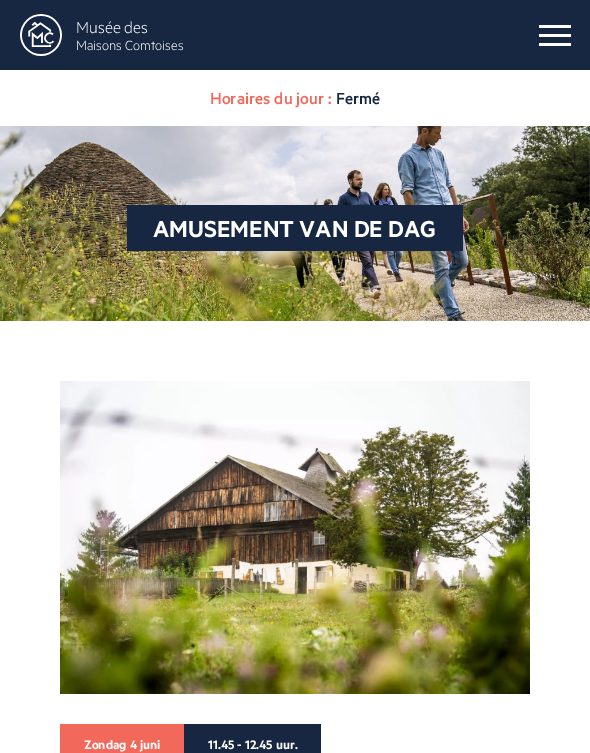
%!PS
<< /PageSize [590 753] >> setpagedevice
/C { dup -16 bitshift 255 div exch dup -8 bitshift 255 and 255 div exch 255 and 255 div setrgbcolor } def
/F { [ exch dup neg 0 0 3 -1 roll 0 0 ] selectfont } def
/T { moveto show } def
/R { rectfill } def
/I { 5 dict begin { /h /w /y /x /name } { exch def } forall
  gsave x y translate w h scale
  w h 8 [w 0 0 h 0 0] name (r) file false 3 colorimage grestore end } def
0 753 translate 1 -1 scale
4 setmiterlimit
16#FFFFFF C
0 0 590 753 R
16#172741 C
0 0 590 70 R
(1.rgb) 20 14 42 42 I
/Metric-Light 18 F
16#FFFFFF C
(Musée des) 76 33 T
/Metric-Light 15 F
(Maisons Comtoises) 76 50 T
539 25 32 3 R
539 34 32 3 R
539 43 32 3 R
/Metric-Medium 18 F
16#F2695C C
(Horaires du jour :) 210 104 T
16#172741 C
(Fermé) 336 104 T
(2.rgb) 0 126 590 195 I
127 205 336 38 R
/Metric-SemiBold 26 F
16#FFFFFF C
(AMUSEMENT VAN DE DAG) 153 237 T
16#172741 C
127 243 336 8 R
(3.rgb) 60 381 470 313 I
16#F2695C C
60 724 124 29 R
/Metric-SemiBold 14 F
16#FFFFFF C
(Zondag 4 juni) 84 749 T
16#172741 C
184 724 137 29 R
16#FFFFFF C
(11.45 - 12.45 uur.) 208 749 T
showpage
